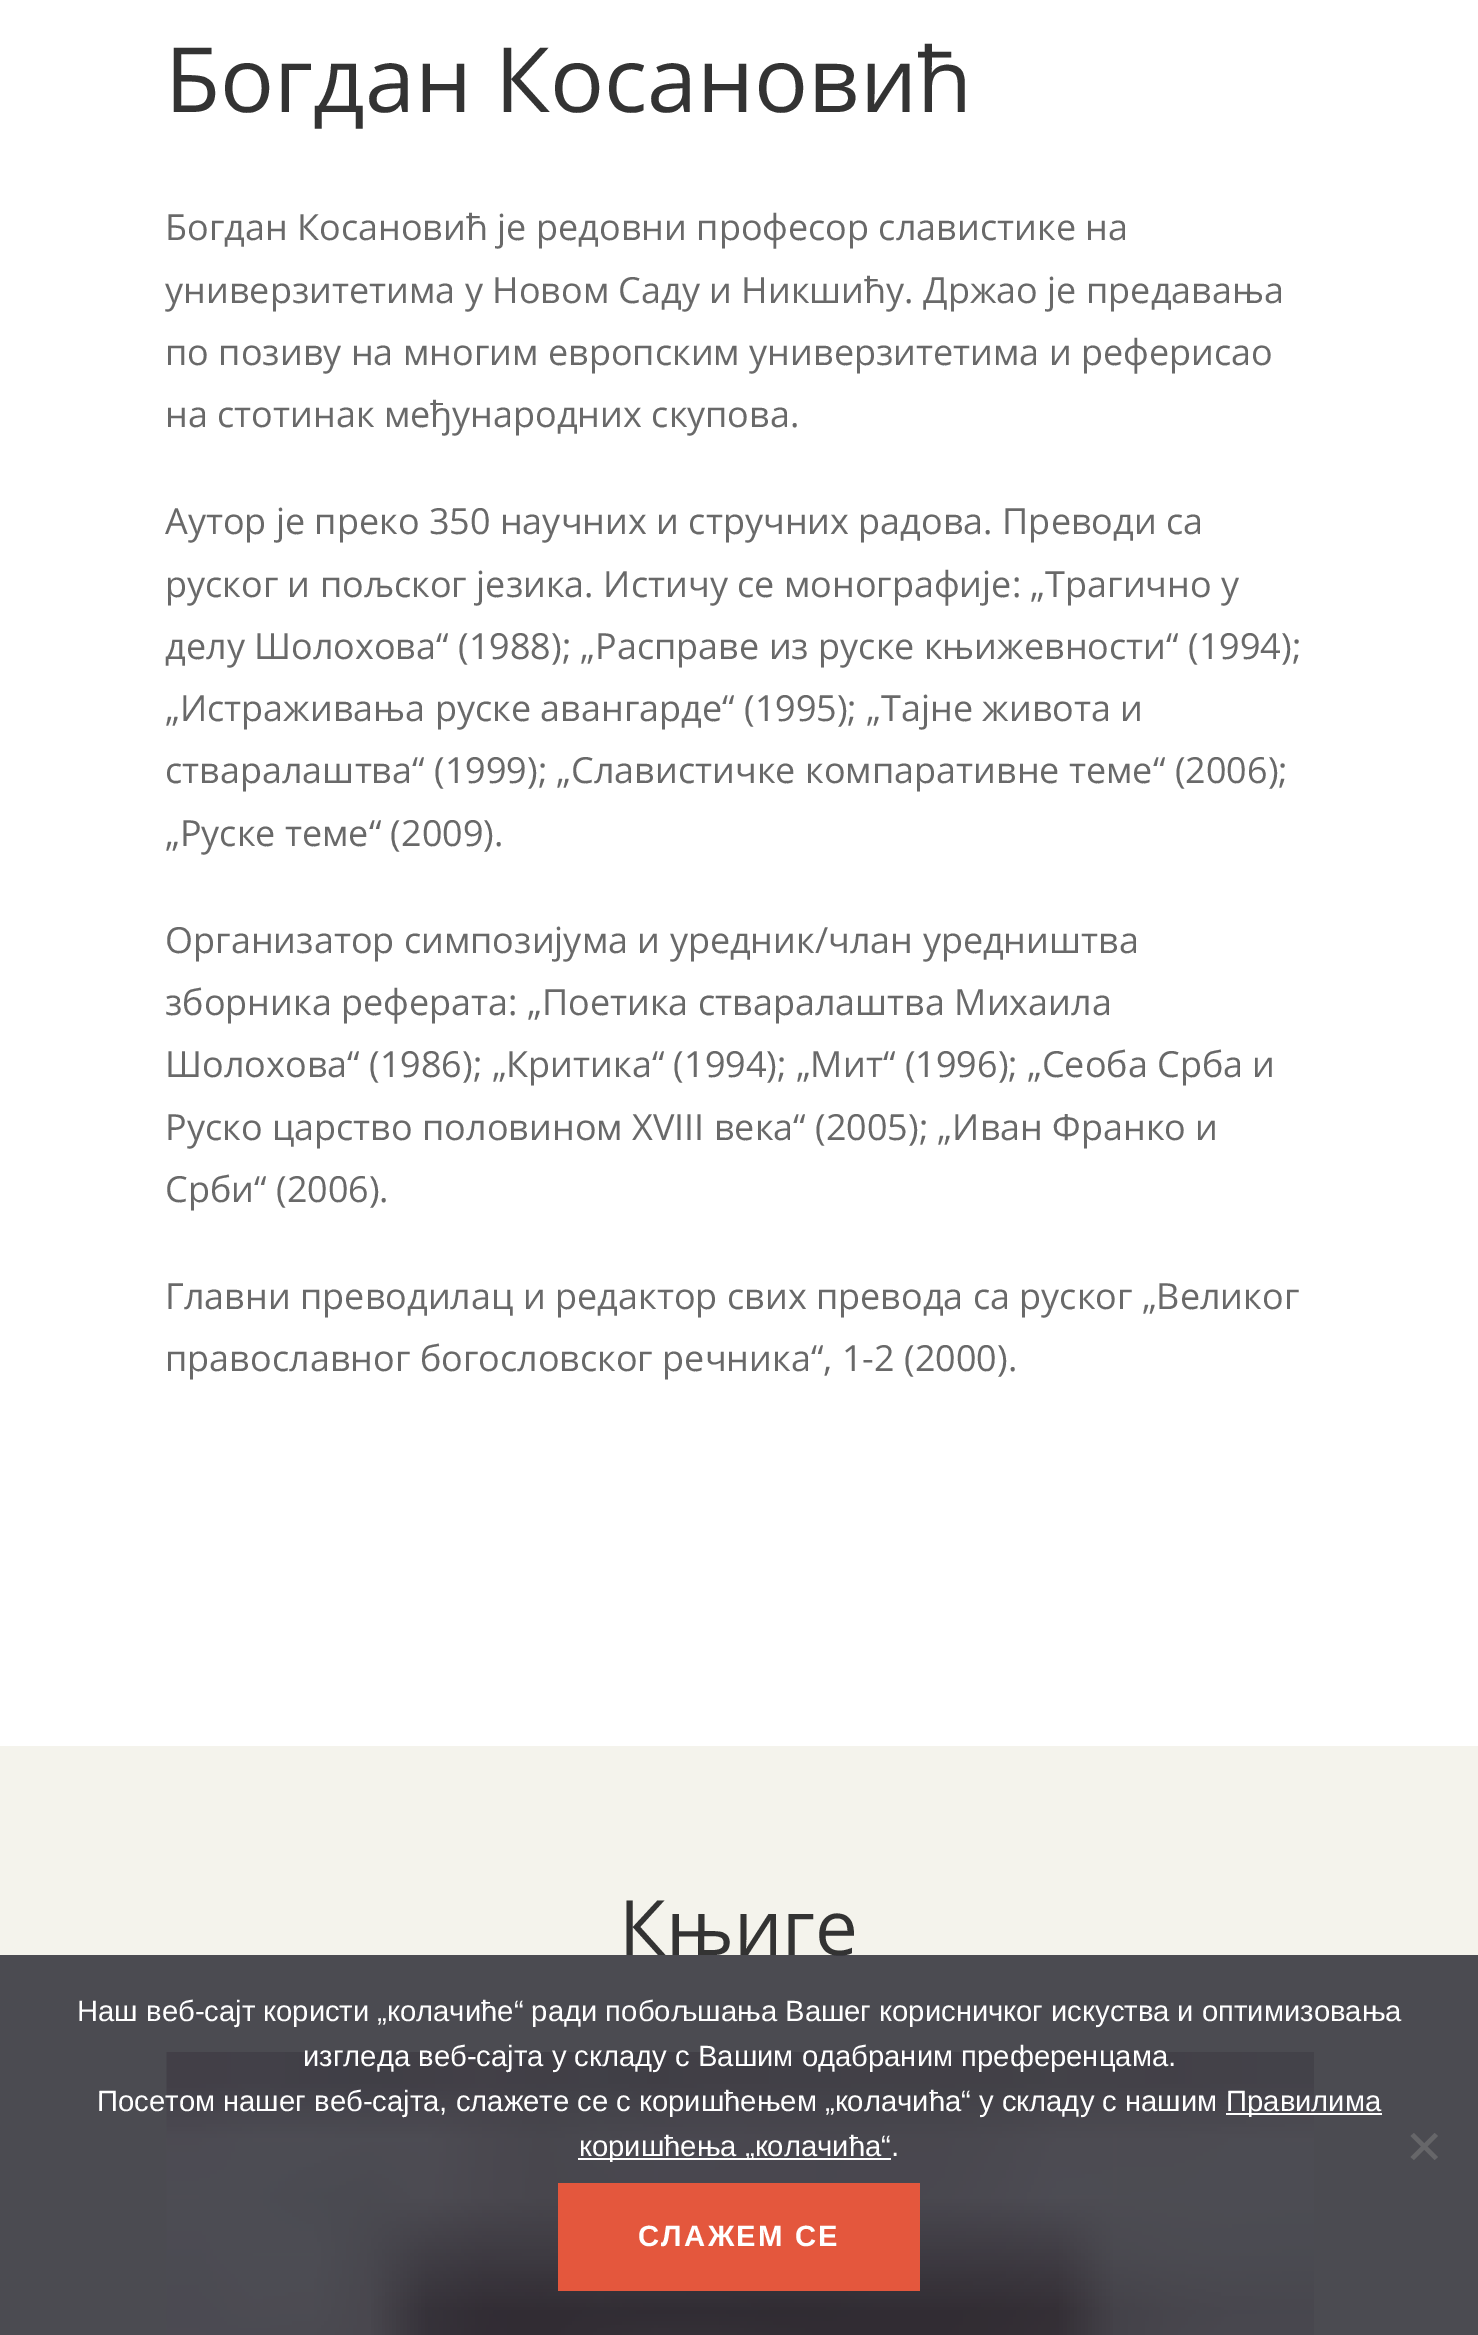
%!PS
<< /PageSize [1478 2335] /PageUsesTransparency true >> setpagedevice
/m/moveto load def
/l/rlineto load def
/z/closepath load def
/f/fill load def
/C { dup -16 bitshift 255 div exch dup -8 bitshift 255 and 255 div exch 255 and 255 div setrgbcolor } def
/F { [ exch dup neg 0 0 3 -1 roll 0 0 ] selectfont } def
/T { moveto show } def
/R { rectfill } def
/A { dup .setfillconstantalpha .setstrokeconstantalpha } def
/I { 5 dict begin { /h /w /y /x /name } { exch def } forall
  gsave x y translate w h scale
  w h 8 [w 0 0 h 0 0] name (r) file false 3 colorimage grestore end } def
0 .pushpdf14devicefilter
0 2335 translate 1 -1 scale
4 setmiterlimit
16#FFFFFF C
0 0 1478 2335 R
/OpenSans-Regular 90 F
16#333333 C
(Богдан Косановић) 165 112 T
/OpenSans-Regular 36 F
16#696969 C
(Богдан Косановић је редовни професор славистике на) 165 240 T
(универзитетима у Новом Саду и Никшићу. Држао је предавања) 165 303 T
(по позиву на многим европским универзитетима и реферисао) 165 365 T
(на стотинак међународних скупова.) 165 427 T
(Аутор је преко 350 научних и стручних радова. Преводи са) 165 534 T
(руског и пољског језика. Истичу се монографије: „Трагично у) 165 597 T
(делу Шолохова“ \(1988\); „Расправе из руске књижевности“ \(1994\);) 165 659 T
(„Истраживања руске авангарде“ \(1995\); „Тајне живота и) 165 721 T
(стваралаштва“ \(1999\); „Славистичке компаративне теме“ \(2006\);) 165 783 T
(„Руске теме“ \(2009\).) 165 846 T
(Организатор симпозијума и уредник/члан уредништва) 165 953 T
(зборника реферата: „Поетика стваралаштва Михаила) 165 1015 T
(Шолохова“ \(1986\); „Критика“ \(1994\); „Мит“ \(1996\); „Сеоба Срба и) 165 1077 T
(Руско царство половином XVIII века“ \(2005\); „Иван Франко и) 165 1140 T
(Срби“ \(2006\).) 165 1202 T
(Главни преводилац и редактор свих превода са руског „Великог) 165 1309 T
(православног богословског речника“, 1-2 \(2000\).) 165 1371 T
16#F4F3EC C
0 1746 1478 589 R
/OpenSans-Regular 76.5 F
16#333333 C
(Књиге) 619 1955 T
(1.rgb) 166 2052 1148 283 I
0.87 A
16#32323A C
0 1955 1478 380 R
/LiberationSans-Regular 29.25 F
1 A
16#FFFFFF C
(Наш веб-сајт користи „колачиће“ ради побољшања Вашег корисничког искуства и оптимизовања) 77 2021 T
(изгледа веб-сајта у складу с Вашим одабраним преференцама.) 303 2066 T
(Посетом нашег веб-сајта, слажете се с коришћењем „колачића“ у складу с нашим) 97 2111 T
1226 2113 156 2 R
(Правилима) 1226 2111 T
578 2158 313 2 R
(коришћења „колачића“.) 579 2156 T
16#666669 C
1434.5 2133 m 3.5 3 l -24 24 l -3.5 -3 l z f
1410.5 2136 m 3.5 -3 l 24 24 l -3.5 3 l z f
16#E4573D C
558 2183 362 108 R
/LiberationSans-Bold 29.25 F
16#FFFFFF C
638 2246 m 2.25 0 (СЛАЖЕМ СЕ) ashow
.poppdf14devicefilter showpage
